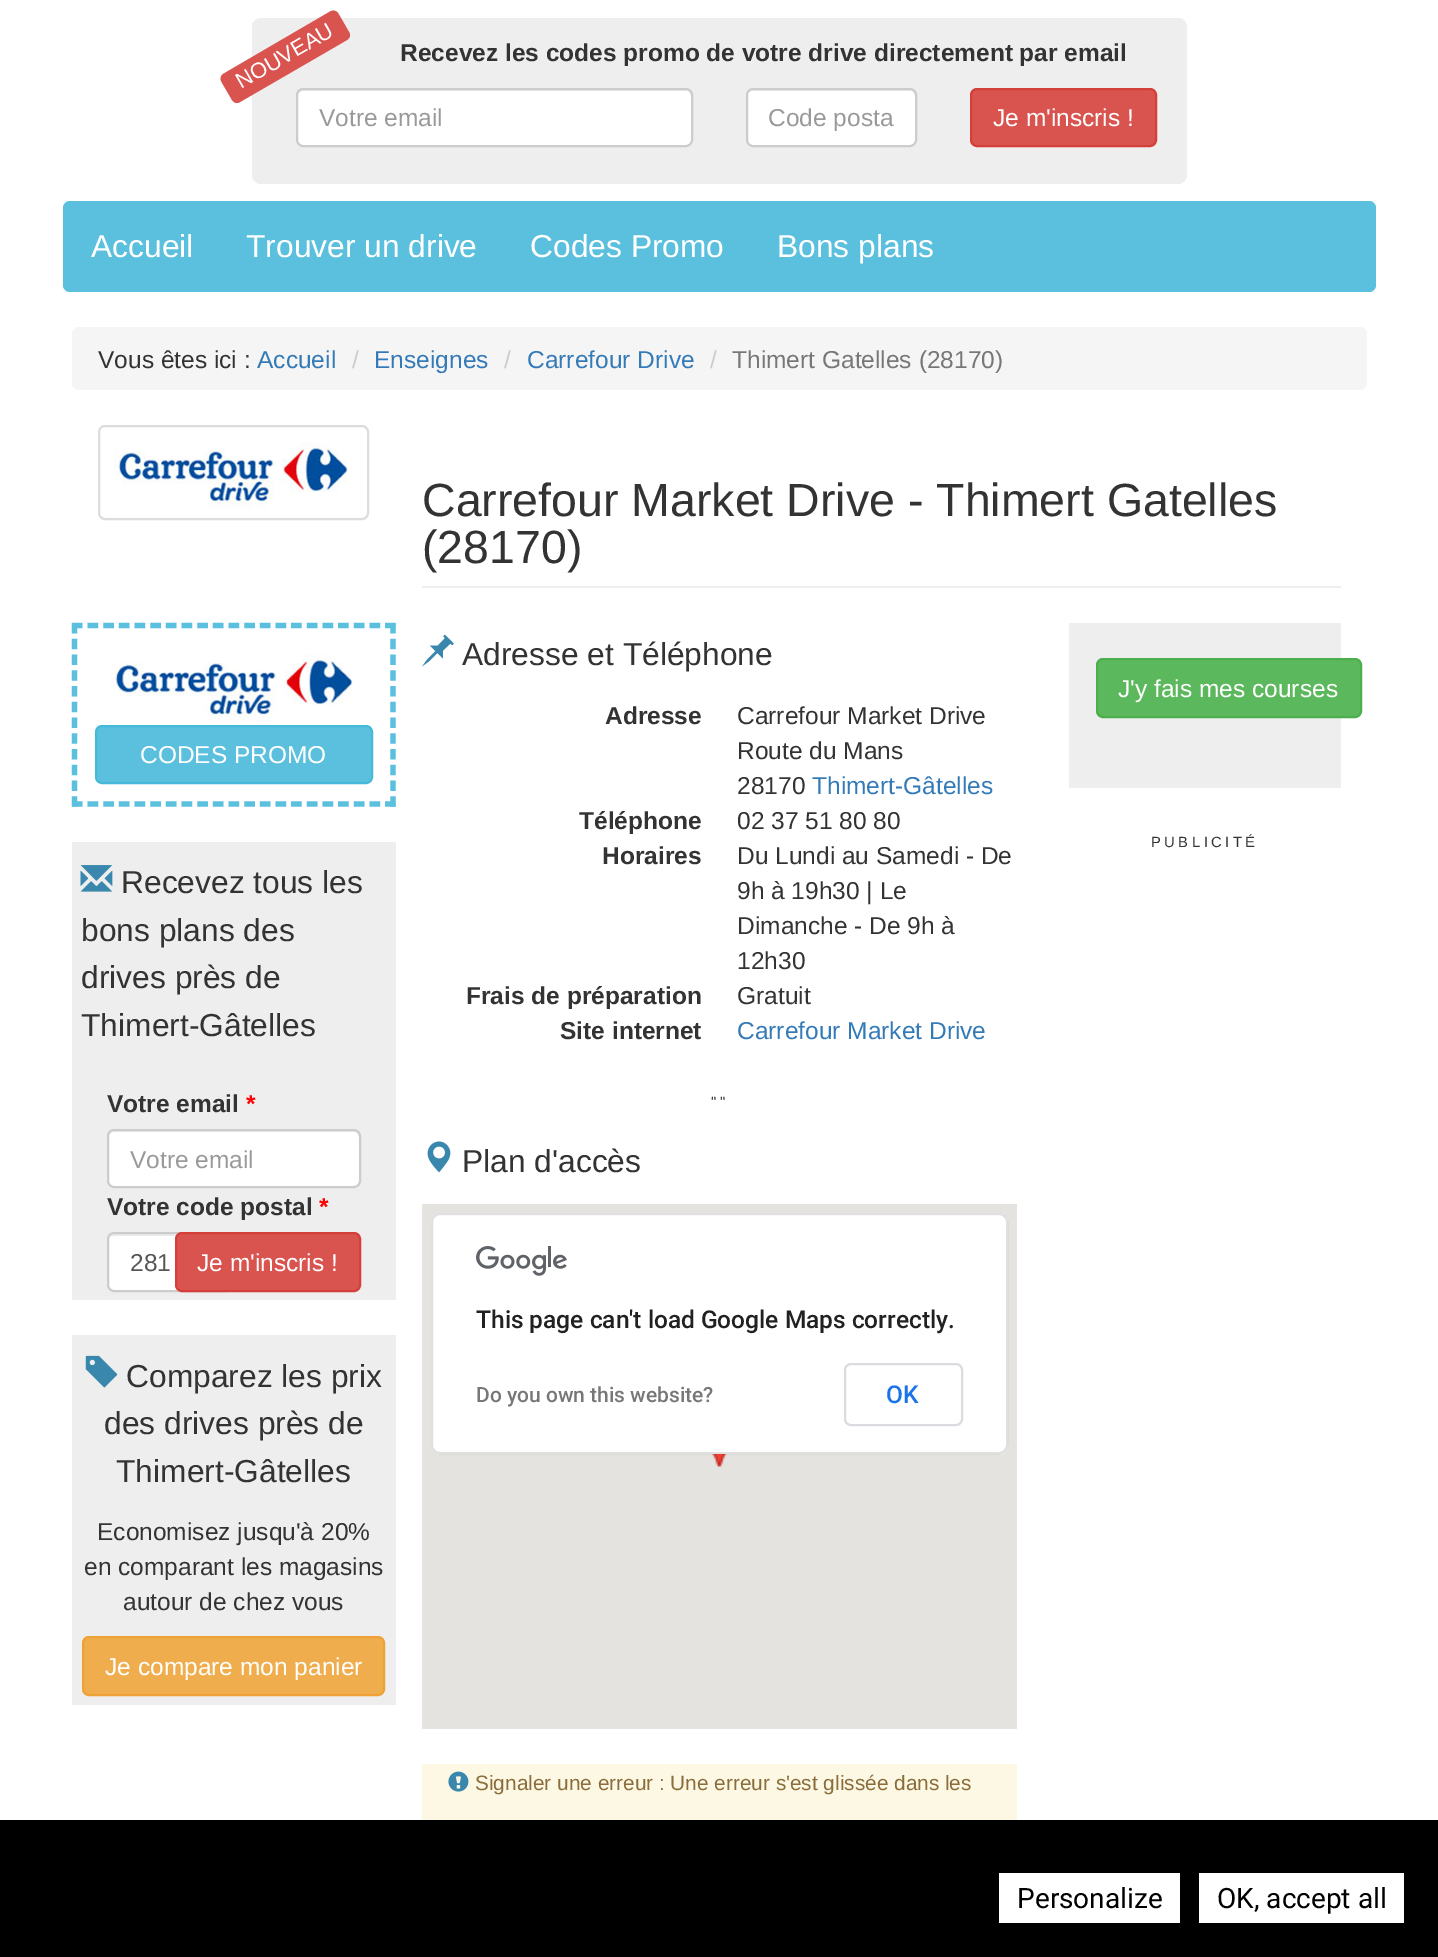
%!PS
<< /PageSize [1438 1957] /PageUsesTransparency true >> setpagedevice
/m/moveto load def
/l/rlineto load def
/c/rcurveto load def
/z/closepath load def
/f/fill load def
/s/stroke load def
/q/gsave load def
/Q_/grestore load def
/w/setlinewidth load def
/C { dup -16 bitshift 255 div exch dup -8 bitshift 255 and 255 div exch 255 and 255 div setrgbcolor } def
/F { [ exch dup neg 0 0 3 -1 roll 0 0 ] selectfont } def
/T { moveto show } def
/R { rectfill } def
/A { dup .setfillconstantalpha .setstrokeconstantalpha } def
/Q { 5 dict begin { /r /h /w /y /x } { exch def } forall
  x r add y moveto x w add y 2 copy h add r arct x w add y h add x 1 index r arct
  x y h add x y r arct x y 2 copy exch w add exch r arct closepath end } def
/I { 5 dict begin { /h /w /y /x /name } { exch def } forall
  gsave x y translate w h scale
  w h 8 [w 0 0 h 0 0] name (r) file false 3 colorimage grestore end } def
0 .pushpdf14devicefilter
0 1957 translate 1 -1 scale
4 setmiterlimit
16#FFFFFF C
0 0 1438 1957 R
16#EEEEEE C
252 18 935 166 9 Q f
16#D9534F C
223 74 m 108 -63 l 3 -1 6 0 7 2 c 11 19 l 2 3 1 6 -2 8 c -107 62 l -3 2 -6 1 -8 -2 c -11 -19 l -1 -3 0 -6 2 -7 c z f
/LiberationSans-Regular 22 F
16#FFFFFF C
q 241 89 translate -30 rotate 0 0 m (NOUVEAU) show Q_
/LiberationSans-Bold 24.5 F
16#333333 C
(Recevez les codes promo de votre drive directement par email) 400 61 T
16#FFFFFF C
296 88 397 59 7 Q f
16#ECECEC C
303 91 m 383 0 l 3 0 5 2 5 5 c 0 -2 l 0 -3 -2 -5 -5 -5 c -383 0 l -3 0 -5 2 -5 5 c 0 2 l 0 -3 2 -5 5 -5 c z f
16#CCCCCC C
2 w
297 89 395 57 6 Q s
/LiberationSans-Regular 24.5 F
16#999999 C
(Votre email) 319 126 T
16#FFFFFF C
746 88 171 59 7 Q f
16#ECECEC C
752 91 m 158 0 l 3 0 5 2 5 5 c 0 -2 l 0 -3 -2 -5 -5 -5 c -158 0 l -3 0 -5 2 -5 5 c 0 2 l 0 -3 3 -5 5 -5 c z f
16#CCCCCC C
747 89 169 57 6 Q s
16#999999 C
(Code posta) 768 126 T
16#D9534F C
971 89 185 57 6 Q q f Q_
16#D43F3A C
s
16#FFFFFF C
(Je m'inscris !) 993 126 T
16#5BC0DE C
63 201 1313 91 7 Q f
/LiberationSans-Regular 31.75 F
16#FFFFFF C
(Accueil) 91 257 T
(Trouver un drive) 246 257 T
(Codes Promo) 530 257 T
(Bons plans) 777 257 T
16#F5F5F5 C
72 327 1295 63 7 Q f
/LiberationSans-Regular 24.5 F
16#333333 C
(Vous êtes ici :) 98 368 T
16#337AB7 C
(Accueil) 257 368 T
16#CCCCCC C
(/) 352 368 T
16#337AB7 C
(Enseignes) 374 368 T
16#CCCCCC C
(/) 504 368 T
16#337AB7 C
(Carrefour Drive) 527 368 T
16#CCCCCC C
(/) 710 368 T
16#777777 C
(Thimert Gatelles \(28170\)) 732 368 T
16#DDDDDD C
99 426 269 93 6 Q s
(1.rgb) 114 443 234 65 I
16#EEEEEE C
422 586 919 2 R
/LiberationSans-Regular 46.5 F
16#333333 C
(Carrefour Market Drive - Thimert Gatelles) 422 516 T
(\(28170\)) 422 563 T
16#5BC0DE C
5.2 w
[10.5 5.16] 0 setdash
72 625.5 m 323.5 0 l s
[10.5 5.25] 0 setdash
393 623 m 0 184 l s
[10.5 5.16] 0 setdash
72 804 m 323.5 0 l s
[10.5 5.25] 0 setdash
74.5 623 m 0 184 l s
(2.rgb) 111 654 242 67 I
96 726 276 57 6 Q q f Q_
16#46B8DA C
2 w
[] 0 setdash
s
/LiberationSans-Regular 24.5 F
16#FFFFFF C
(CODES PROMO) 140 763 T
16#EEEEEE C
72 842 324 458 R
(3.rgb) 80 865 33 27 I
/LiberationSans-Regular 31.75 F
16#333333 C
(Recevez tous les) 121 893 T
(bons plans des) 81 941 T
(drives près de) 81 988 T
(Thimert-Gâtelles) 81 1036 T
/LiberationSans-Bold 24.5 F
(Votre email) 107 1112 T
16#FF0000 C
(*) 246 1112 T
16#FFFFFF C
107 1129 254 59 7 Q f
16#ECECEC C
114 1132 m 240 0 l 2 0 5 3 5 6 c 0 -2 l 0 -3 -2 -5 -5 -5 c -240 0 l -2 0 -4 2 -5 4 c 1 -2 3 -3 5 -3 c z f
16#CCCCCC C
108 1130 252 57 6 Q s
/LiberationSans-Regular 24.5 F
16#999999 C
(Votre email) 130 1168 T
/LiberationSans-Bold 24.5 F
16#333333 C
(Votre code postal) 107 1215 T
16#FF0000 C
(*) 319 1215 T
16#FFFFFF C
107 1232 126 60 7 Q f
16#ECECEC C
114 1236 m 112 0 l 3 0 5 2 5 5 c 0 -2 l 0 -3 -2 -5 -5 -5 c -112 0 l -2 0 -5 2 -5 4 c 1 -1 3 -2 5 -2 c z f
16#CCCCCC C
108 1233 124 58 6 Q s
/LiberationSans-Regular 24.5 F
16#555555 C
(281) 130 1271 T
16#D9534F C
176 1233 184 58 6 Q q f Q_
16#D43F3A C
s
16#FFFFFF C
(Je m'inscris !) 197 1271 T
16#EEEEEE C
72 1335 324 370 R
(4.rgb) 85 1355 33 33 I
/LiberationSans-Regular 31.75 F
16#333333 C
(Comparez les prix) 126 1387 T
(des drives près de) 104 1434 T
(Thimert-Gâtelles) 116 1482 T
/LiberationSans-Regular 24.5 F
(Economisez jusqu'à 20%) 97 1540 T
(en comparant les magasins) 84 1575 T
(autour de chez vous) 123 1610 T
16#F0AD4E C
83 1637 301 58 6 Q q f Q_
16#EEA236 C
s
16#FFFFFF C
(Je compare mon panier) 105 1675 T
(5.rgb) 422 634 32 33 I
/LiberationSans-Regular 31.75 F
16#333333 C
(Adresse et Téléphone) 462 665 T
/LiberationSans-Bold 24.5 F
(Adresse) 605 724 T
/LiberationSans-Regular 24.5 F
(Carrefour Market Drive) 737 724 T
(Route du Mans) 737 759 T
(28170) 737 794 T
16#337AB7 C
(Thimert-Gâtelles) 812 794 T
/LiberationSans-Bold 24.5 F
16#333333 C
(Téléphone) 579 829 T
/LiberationSans-Regular 24.5 F
(02 37 51 80 80) 737 829 T
/LiberationSans-Bold 24.5 F
(Horaires) 602 864 T
/LiberationSans-Regular 24.5 F
(Du Lundi au Samedi - De) 737 864 T
(9h à 19h30 | Le) 737 899 T
(Dimanche - De 9h à) 737 934 T
(12h30) 737 969 T
/LiberationSans-Bold 24.5 F
(Frais de préparation) 466 1004 T
/LiberationSans-Regular 24.5 F
(Gratuit) 737 1004 T
/LiberationSans-Bold 24.5 F
(Site internet) 560 1039 T
/LiberationSans-Regular 24.5 F
16#337AB7 C
(Carrefour Market Drive) 737 1039 T
/LiberationSans-Regular 14.75 F
16#333333 C
711 1107 m 3.5 0 ("") ashow
(6.rgb) 427 1141 24 32 I
/LiberationSans-Regular 31.75 F
(Plan d'accès) 462 1172 T
16#E5E3DF C
422 1204 595 525 R
(7.rgb) 711 1454 16 13 I
16#FFFFFF C
431 1213 577 241 9 Q f
0.12 A
16#000000 C
432 1214 575 239 8 Q s
1 A
(8.rgb) 476 1246 91 30 I
/Roboto-Medium 24.5 F
16#212121 C
(This page can't load Google Maps correctly.) 476 1328 T
/Roboto-Medium 21 F
16#777777 C
(Do you own this website?) 476 1402 T
16#DADCE0 C
845 1364 117 61 6 Q s
/Roboto-Medium 24.5 F
16#1A73E8 C
(OK) 886 1403 T
16#FCF8E3 C
422 1764 595 56 R
(9.rgb) 448 1771 21 21 I
/LiberationSans-Regular 20.8 F
16#8A6D3B C
(Signaler une erreur : Une erreur s'est glissée dans les) 475 1790 T
16#EEEEEE C
1069 623 272 165 R
16#5CB85C C
1097 659 264 58 6 Q q f Q_
16#4CAE4C C
s
/LiberationSans-Regular 24.5 F
16#FFFFFF C
(J'y fais mes courses) 1118 697 T
/LiberationSans-Regular 14.75 F
16#333333 C
1151 847 m 3.5 0 (PUBLICITÉ) ashow
16#000000 C
0 1820 1438 137 R
16#FFFFFF C
999 1873 181 50 R
/Roboto-Regular 28 F
16#000000 C
(Personalize) 1017 1908 T
16#FFFFFF C
1199 1873 205 50 R
16#000000 C
(OK, accept all) 1217 1908 T
.poppdf14devicefilter showpage
